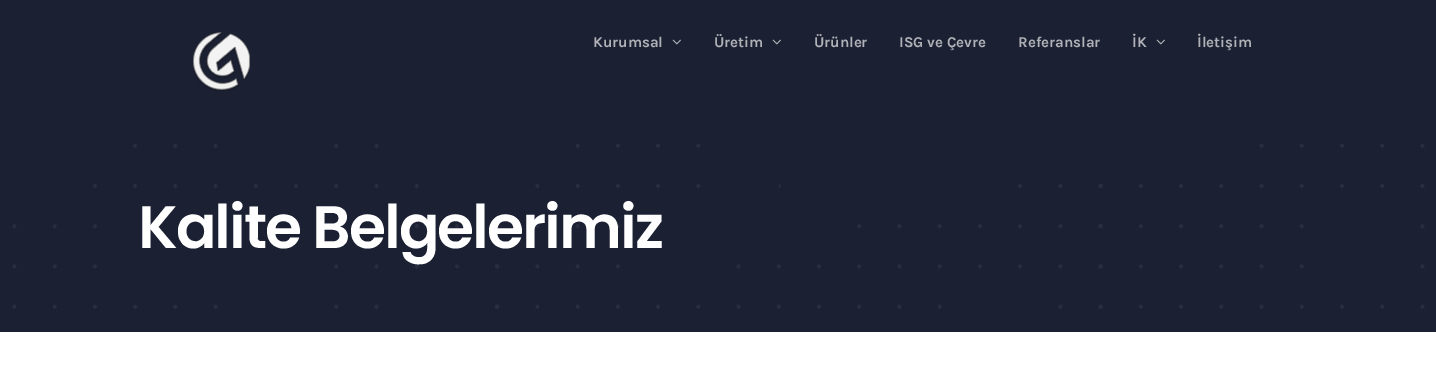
%!PS
<< /PageSize [1436 373] >> setpagedevice
/m/moveto load def
/C { dup -16 bitshift 255 div exch dup -8 bitshift 255 and 255 div exch 255 and 255 div setrgbcolor } def
/F { [ exch dup neg 0 0 3 -1 roll 0 0 ] selectfont } def
/T { moveto show } def
/R { rectfill } def
/I { 5 dict begin { /h /w /y /x /name } { exch def } forall
  gsave x y translate w h scale
  w h 8 [w 0 0 h 0 0] name (r) file false 3 colorimage grestore end } def
0 373 translate 1 -1 scale
4 setmiterlimit
16#FFFFFF C
0 0 1436 373 R
16#1B2032 C
0 0 1436 332 R
(1.rgb) 193 32 57 59 I
/Karla-Bold 15 F
16#AFB1B7 C
(Kurumsal) 593 47 T
(2.rgb) 672 39 9 6 I
(Üretim) 714 47 T
(2.rgb) 772 39 9 6 I
(Ürünler) 814 47 T
(ISG ve Çevre) 899 47 T
(Referanslar) 1018 47 T
(İK) 1132 47 T
(2.rgb) 1156 39 9 6 I
(İletişim) 1197 47 T
(3.rgb) 12 144 1413 165 I
/Poppins-SemiBold 60 F
16#FFFFFF C
138 248 m -2 0 (Kalite Belgelerimiz) ashow
showpage
